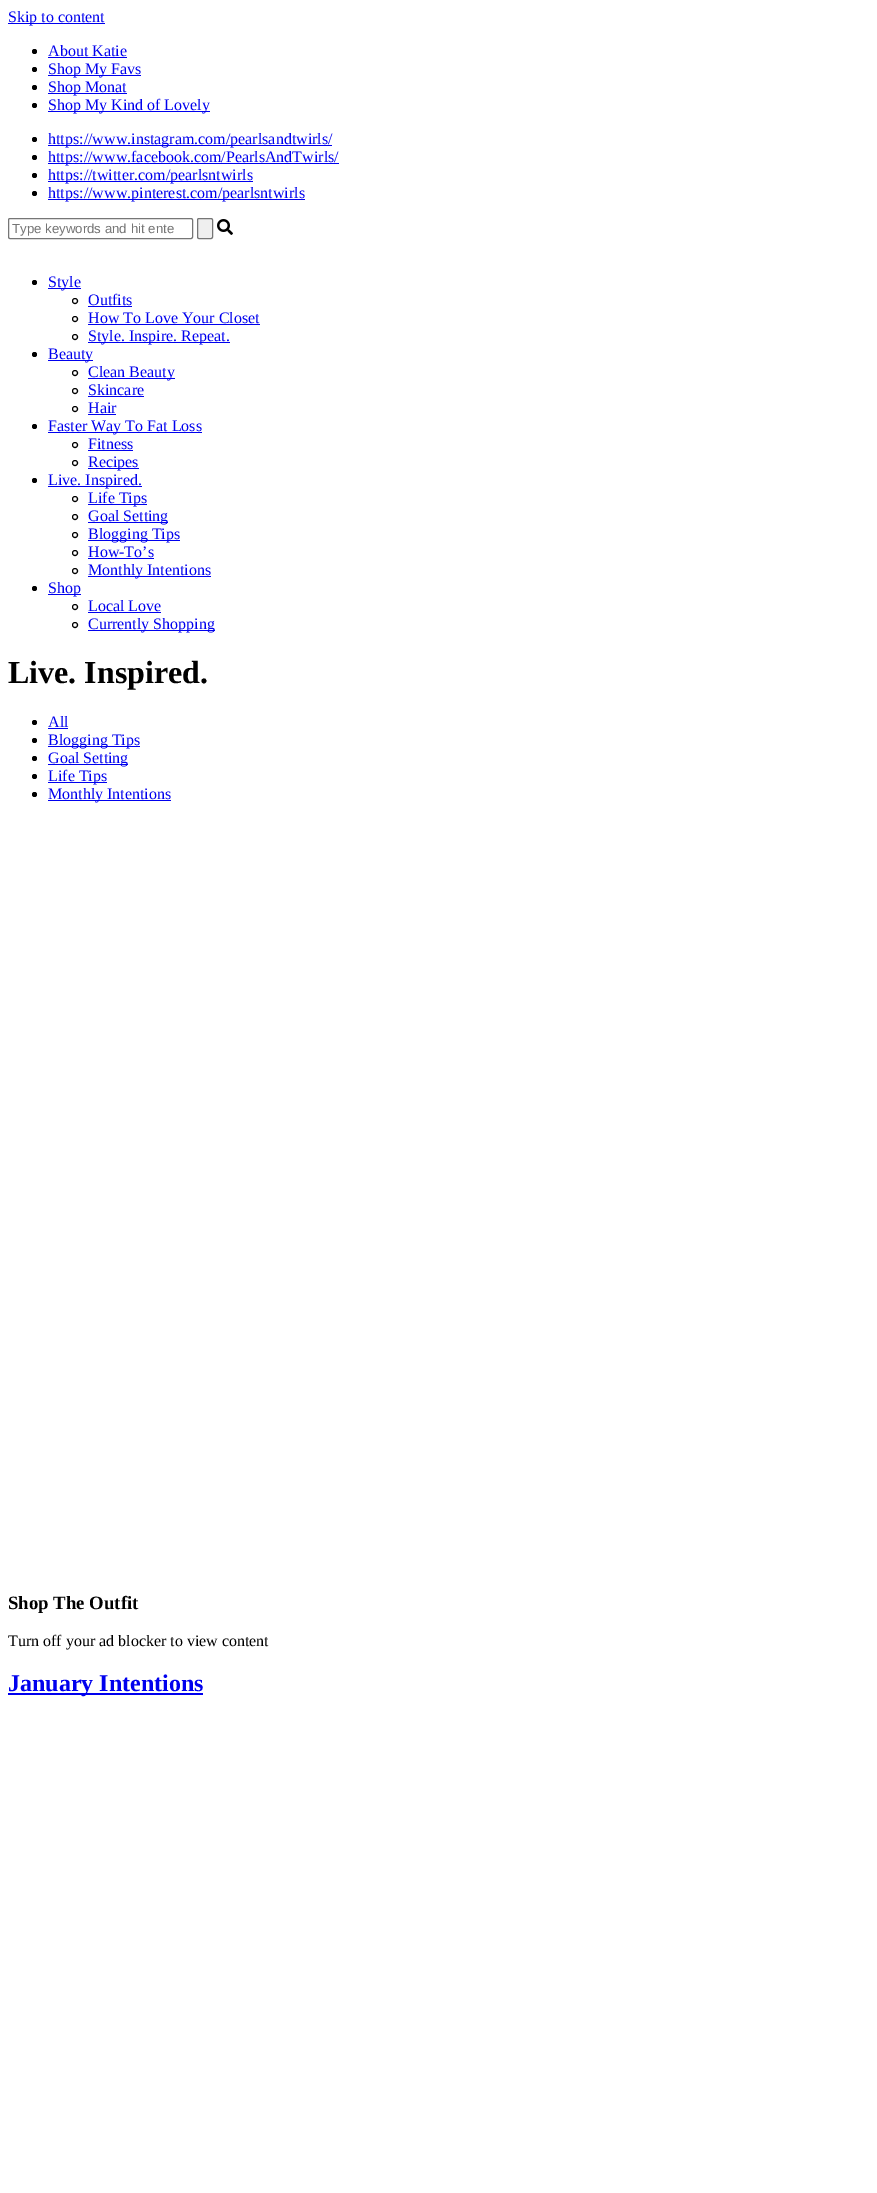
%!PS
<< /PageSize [877 2193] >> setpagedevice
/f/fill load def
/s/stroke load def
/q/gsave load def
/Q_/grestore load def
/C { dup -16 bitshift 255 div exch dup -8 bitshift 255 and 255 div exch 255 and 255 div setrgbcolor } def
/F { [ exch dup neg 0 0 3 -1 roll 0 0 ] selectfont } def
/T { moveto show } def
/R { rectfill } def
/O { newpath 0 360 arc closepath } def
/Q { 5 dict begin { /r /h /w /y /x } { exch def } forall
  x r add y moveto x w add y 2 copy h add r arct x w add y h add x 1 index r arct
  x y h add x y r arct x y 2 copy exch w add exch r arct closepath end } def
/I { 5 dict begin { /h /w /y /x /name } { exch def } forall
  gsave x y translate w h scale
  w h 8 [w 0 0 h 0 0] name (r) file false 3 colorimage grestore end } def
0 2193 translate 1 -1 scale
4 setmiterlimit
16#FFFFFF C
0 0 877 2193 R
16#0000EE C
8 23 97 1 R
/LiberationSerif-Regular 16 F
(Skip to content) 8 22 T
16#000000 C
34.5 51.5 2.5 O f
16#0000EE C
(About Katie) 48 56 T
48 57 79 1 R
16#000000 C
34.5 69.5 2.5 O f
16#0000EE C
48 75 93 1 R
(Shop My Favs) 48 74 T
16#000000 C
34.5 87.5 2.5 O f
16#0000EE C
48 93 79 1 R
(Shop Monat) 48 92 T
16#000000 C
34.5 105.5 2.5 O f
16#0000EE C
48 111 162 1 R
(Shop My Kind of Lovely) 48 110 T
16#000000 C
34.5 139.5 2.5 O f
16#0000EE C
48 145 284 1 R
(https://www.instagram.com/pearlsandtwirls/) 48 144 T
16#000000 C
34.5 157.5 2.5 O f
16#0000EE C
48 163 291 1 R
(https://www.facebook.com/PearlsAndTwirls/) 48 162 T
16#000000 C
34.5 175.5 2.5 O f
16#0000EE C
48 181 205 1 R
(https://twitter.com/pearlsntwirls) 48 180 T
16#000000 C
34.5 193.5 2.5 O f
16#0000EE C
48 199 257 1 R
(https://www.pinterest.com/pearlsntwirls) 48 198 T
16#767676 C
8.5 218.5 184 20 1.5 Q s
/LiberationSans-Regular 13.25 F
16#757575 C
(Type keywords and hit ente) 12 233 T
16#EFEFEF C
197.5 218.5 15 20 1.5 Q q f Q_
16#767676 C
s
(1.rgb) 217 219 16 16 I
16#000000 C
34.5 282.5 2.5 O f
16#0000EE C
48 288 33 1 R
/LiberationSerif-Regular 16 F
(Style) 48 287 T
16#000000 C
75 301 2.5 O s
16#0000EE C
(Outfits) 88 305 T
88 306 44 1 R
16#000000 C
75 319 2.5 O s
16#0000EE C
(How To Love Your Closet) 88 323 T
88 324 172 1 R
16#000000 C
75 337 2.5 O s
16#0000EE C
88 342 142 1 R
(Style. Inspire. Repeat.) 88 341 T
16#000000 C
34.5 354.5 2.5 O f
16#0000EE C
48 360 45 1 R
(Beauty) 48 359 T
16#000000 C
75 373 2.5 O s
16#0000EE C
88 378 87 1 R
(Clean Beauty) 88 377 T
16#000000 C
75 391 2.5 O s
16#0000EE C
(Skincare) 88 395 T
88 396 56 1 R
16#000000 C
75 409 2.5 O s
16#0000EE C
(Hair) 88 413 T
88 414 28 1 R
16#000000 C
34.5 426.5 2.5 O f
16#0000EE C
48 432 154 1 R
(Faster Way To Fat Loss) 48 431 T
16#000000 C
75 445 2.5 O s
16#0000EE C
(Fitness) 88 449 T
88 450 45 1 R
16#000000 C
75 463 2.5 O s
16#0000EE C
88 468 51 1 R
(Recipes) 88 467 T
16#000000 C
34.5 480.5 2.5 O f
16#0000EE C
48 486 94 1 R
(Live. Inspired.) 48 485 T
16#000000 C
75 499 2.5 O s
16#0000EE C
88 504 59 1 R
(Life Tips) 88 503 T
16#000000 C
75 517 2.5 O s
16#0000EE C
88 522 80 1 R
(Goal Setting) 88 521 T
16#000000 C
75 535 2.5 O s
16#0000EE C
88 540 92 1 R
(Blogging Tips) 88 539 T
16#000000 C
75 553 2.5 O s
16#0000EE C
(How-To’s) 88 557 T
88 558 66 1 R
16#000000 C
75 571 2.5 O s
16#0000EE C
88 576 123 1 R
(Monthly Intentions) 88 575 T
16#000000 C
34.5 588.5 2.5 O f
16#0000EE C
48 594 33 1 R
(Shop) 48 593 T
16#000000 C
75 607 2.5 O s
16#0000EE C
(Local Love) 88 611 T
88 612 73 1 R
16#000000 C
75 625 2.5 O s
16#0000EE C
88 630 127 1 R
(Currently Shopping) 88 629 T
/LiberationSerif-Bold 32 F
16#000000 C
(Live. Inspired.) 8 683 T
34.5 722.5 2.5 O f
/LiberationSerif-Regular 16 F
16#0000EE C
(All) 48 727 T
48 728 20 1 R
16#000000 C
34.5 740.5 2.5 O f
16#0000EE C
48 746 92 1 R
(Blogging Tips) 48 745 T
16#000000 C
34.5 758.5 2.5 O f
16#0000EE C
48 764 80 1 R
(Goal Setting) 48 763 T
16#000000 C
34.5 776.5 2.5 O f
16#0000EE C
48 782 59 1 R
(Life Tips) 48 781 T
16#000000 C
34.5 794.5 2.5 O f
16#0000EE C
48 800 123 1 R
(Monthly Intentions) 48 799 T
/LiberationSerif-Bold 18.75 F
16#000000 C
(Shop The Outfit) 8 1609 T
/LiberationSerif-Regular 16 F
(Turn off your ad blocker to view content) 8 1646 T
16#0000EE C
8 1693 195 2 R
/LiberationSerif-Bold 24 F
(January Intentions) 8 1691 T
showpage
